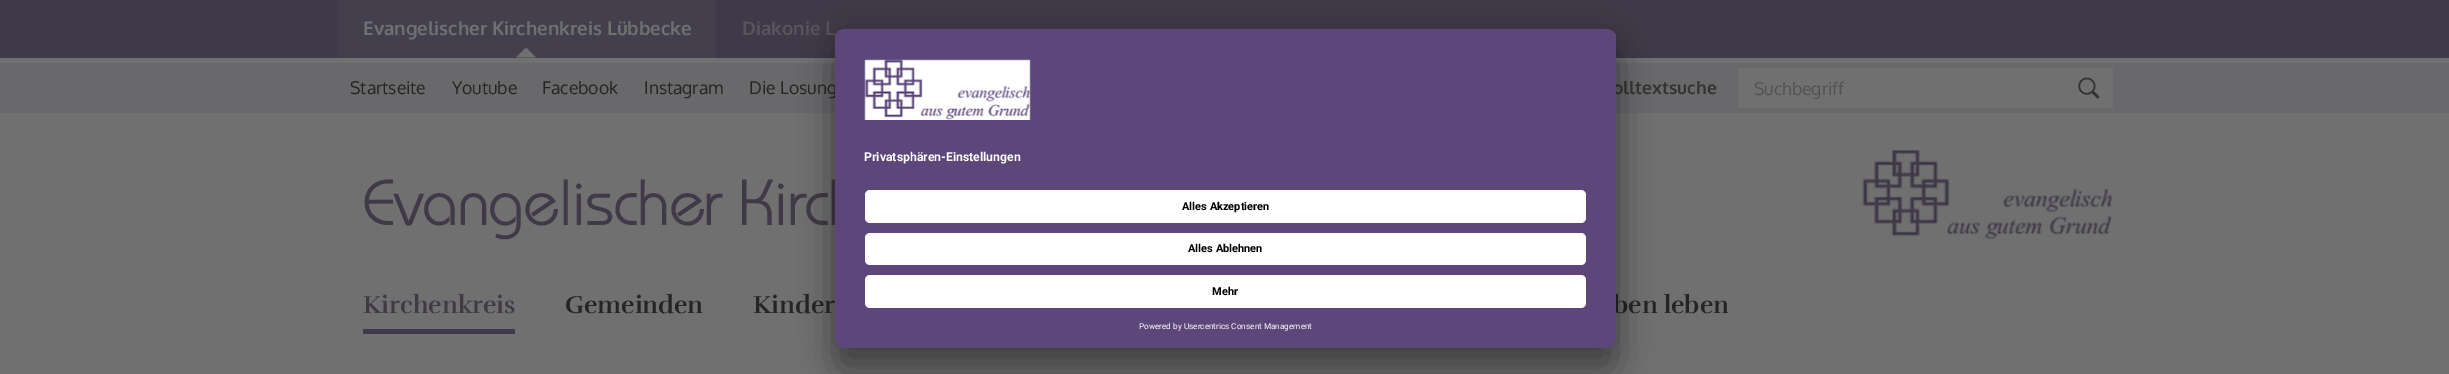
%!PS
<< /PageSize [2449 374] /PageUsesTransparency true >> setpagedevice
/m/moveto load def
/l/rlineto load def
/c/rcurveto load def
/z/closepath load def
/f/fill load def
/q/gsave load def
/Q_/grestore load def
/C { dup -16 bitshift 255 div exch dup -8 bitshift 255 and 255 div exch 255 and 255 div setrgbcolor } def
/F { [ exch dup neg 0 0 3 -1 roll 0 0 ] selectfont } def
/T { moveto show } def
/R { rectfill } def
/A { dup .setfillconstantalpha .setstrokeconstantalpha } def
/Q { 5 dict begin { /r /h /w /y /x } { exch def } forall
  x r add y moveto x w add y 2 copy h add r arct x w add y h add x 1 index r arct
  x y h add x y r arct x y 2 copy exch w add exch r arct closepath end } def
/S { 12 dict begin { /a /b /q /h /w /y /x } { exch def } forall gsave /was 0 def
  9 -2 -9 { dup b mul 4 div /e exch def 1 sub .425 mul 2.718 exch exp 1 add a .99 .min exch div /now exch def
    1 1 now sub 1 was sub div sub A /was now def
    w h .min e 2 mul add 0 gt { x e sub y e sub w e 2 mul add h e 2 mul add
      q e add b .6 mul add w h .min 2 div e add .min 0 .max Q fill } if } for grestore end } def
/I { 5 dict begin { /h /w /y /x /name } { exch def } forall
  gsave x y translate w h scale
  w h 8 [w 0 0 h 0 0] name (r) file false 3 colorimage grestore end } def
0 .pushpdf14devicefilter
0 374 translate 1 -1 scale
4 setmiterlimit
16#707070 C
0 0 2449 374 R
16#403949 C
0 0 2449 58 R
16#443F4D C
338 0 378 58 R
/Oxygen-Bold 18.75 F
16#707070 C
(Evangelischer Kirchenkreis Lübbecke) 363 35 T
536 57.5 m -20 0 l 10 -10 l z f
16#58555C C
(Diakonie L) 742 35 T
16#69686A C
0 63 2449 50 R
/Oxygen-Regular 17.5 F
16#242424 C
(Startseite) 350 94 T
(Youtube) 452 94 T
(Facebook) 542 94 T
(Instagram) 644 94 T
(Die Losung) 749 94 T
/Oxygen-Bold 17.5 F
16#333333 C
(olltextsuche) 1613 94 T
16#707070 C
1738 68 375 40 R
q
1754 78 342 21 rectclip
/Oxygen-Regular 17.5 F
16#525252 C
(Suchbegriff) 1754 95 T
Q_
(1.rgb) 2078 77 22 22 I
/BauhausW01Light-Bold 62.5 F
16#403948 C
(Evangelischer Kirch) 363 225 T
(2.rgb) 1862 150 251 89 I
16#403949 C
363 329 152 5 R
/Rufina-Bold 25 F
16#403948 C
(Kirchenkreis) 363 313 T
16#242424 C
(Gemeinden) 565 313 T
(Kinder) 753 313 T
(ben leben) 1613 313 T
16#000000 C
835 54 781 319 10 17.5 .3 S
835 35 781 319 10 16 .22 S
16#5D4679 C
835 29 781 319 10 Q f
q
835 29 781 319 10 Q clip newpath
845 29 m 761 0 l 5.5 0 10 4.5 10 10 c 0 136 l -781 0 l 0 -136 l 0 -5.5 4.5 -10 10 -10 c z clip newpath
835 30 781 145 R
Q_
(3.rgb) 864 59 167 61 I
/Roboto-Bold 12.25 F
16#FFFFFF C
(Privatsphären-Einstellungen) 864 161 T
16#5D4679 C
835 175 m 781 0 l 0 163 l 0 5.5 -4.5 10 -10 10 c -761 0 l -5.5 0 -10 -4.5 -10 -10 c z f
16#FFFFFF C
865 190 721 33 5 Q f
/Roboto-Bold 11 F
16#000000 C
(Alles Akzeptieren) 1182 210 T
16#FFFFFF C
865 233 721 32 5 Q f
16#000000 C
(Alles Ablehnen) 1188 252 T
16#FFFFFF C
865 275 721 33 5 Q f
16#000000 C
(Mehr) 1212 295 T
/Roboto-Regular 8.2 F
16#FFFFFF C
(Powered by Usercentrics Consent Management) 1139 329 T
.poppdf14devicefilter showpage
